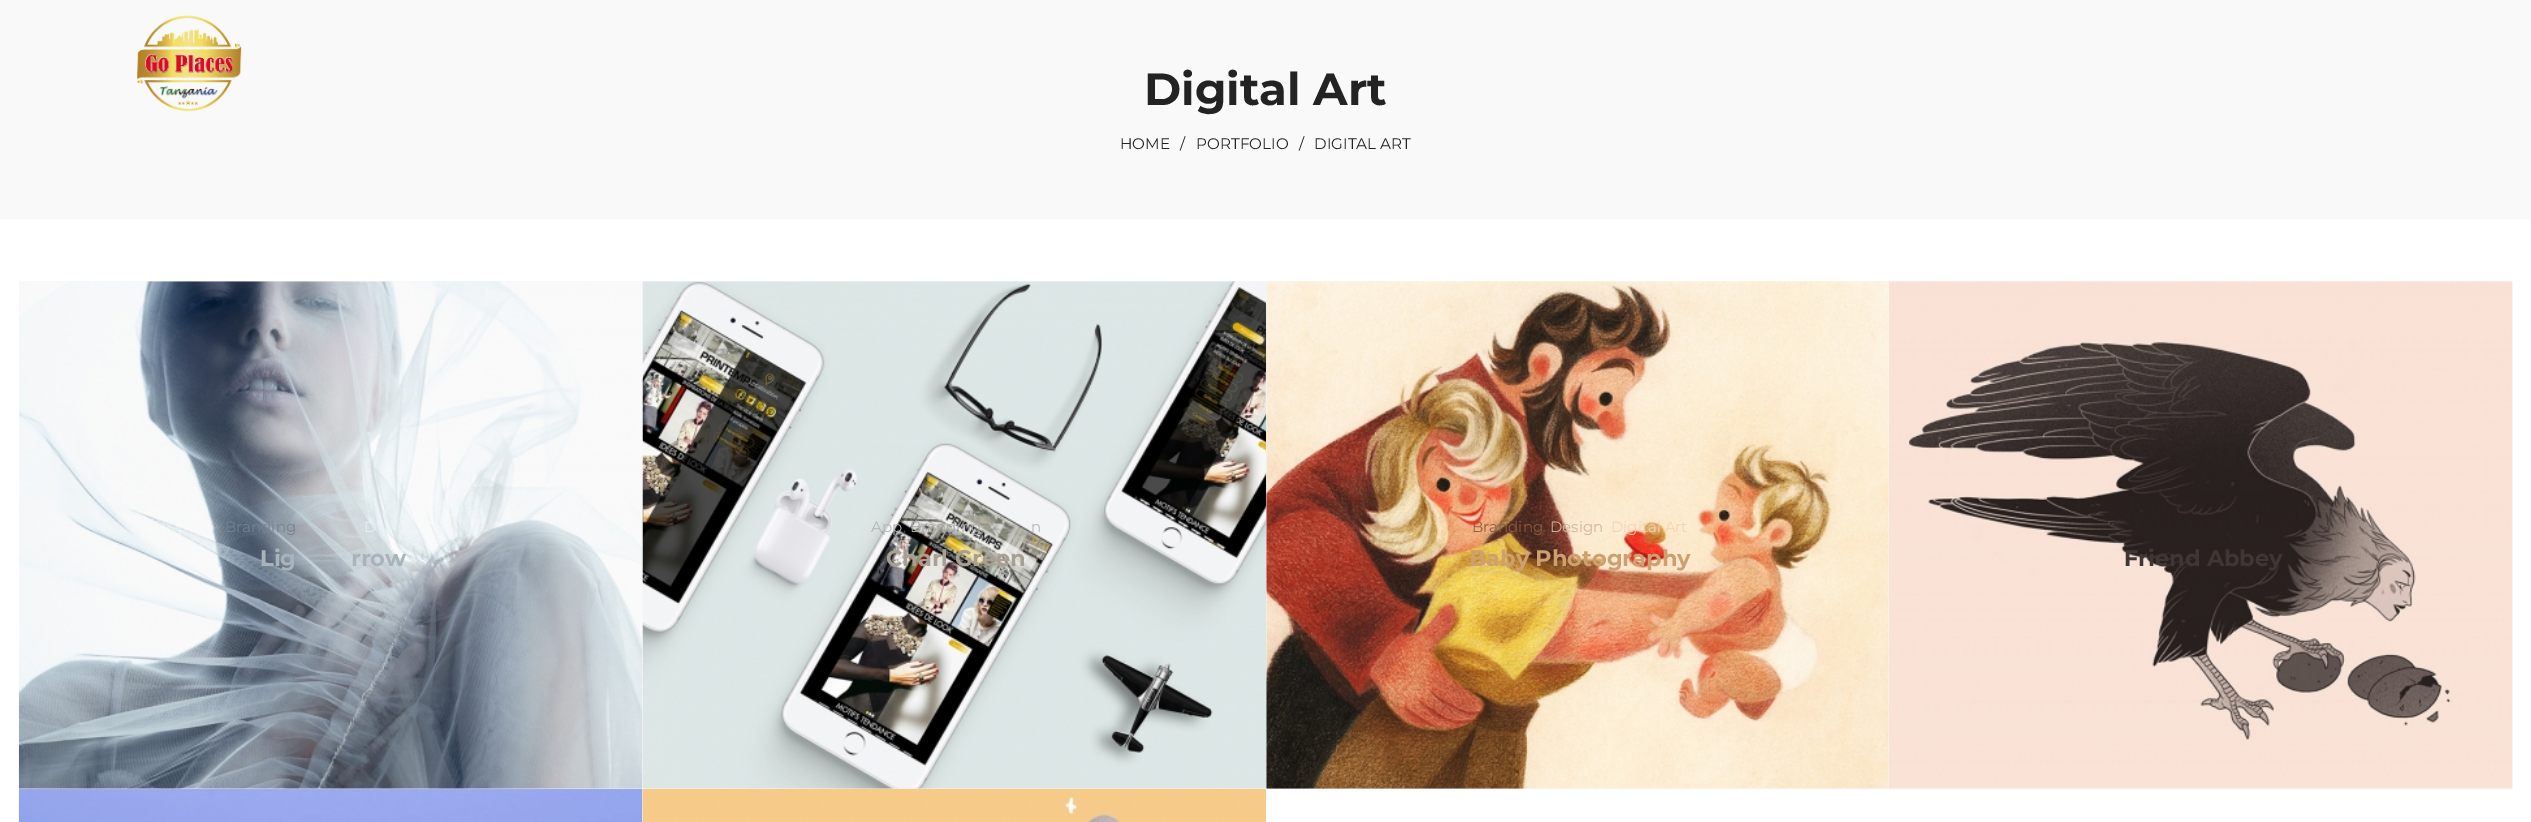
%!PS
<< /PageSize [2531 822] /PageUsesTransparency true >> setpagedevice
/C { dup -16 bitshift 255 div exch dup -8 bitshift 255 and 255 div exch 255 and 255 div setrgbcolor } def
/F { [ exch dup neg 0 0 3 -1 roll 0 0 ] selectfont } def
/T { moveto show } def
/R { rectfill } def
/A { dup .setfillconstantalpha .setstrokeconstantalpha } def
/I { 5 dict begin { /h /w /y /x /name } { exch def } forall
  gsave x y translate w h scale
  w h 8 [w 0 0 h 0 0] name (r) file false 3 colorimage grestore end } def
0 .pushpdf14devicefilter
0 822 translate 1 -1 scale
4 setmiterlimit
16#FFFFFF C
0 0 2531 822 R
16#F9F9F9 C
0 0 2531 219 R
(1.rgb) 136 15 106 97 I
/Montserrat-Bold 45 F
16#232324 C
(Digital Art) 1144 105 T
/Montserrat-Regular 15.25 F
(HOME) 1120 149 T
(/) 1180 149 T
(PORTFOLIO) 1196 149 T
(/) 1299 149 T
(DIGITAL ART) 1314 149 T
16#F8F8F8 C
19 281 1247 508 R
(2.rgb) 18 281 625 508 I
/Montserrat-Regular 15 F
16#748291 C
(Branding) 225 532 T
16#E9EFF2 C
(D) 364 532 T
/Montserrat-Bold 22.5 F
16#A9B3BC C
(Lig) 260 566 T
(rrow) 351 566 T
(3.rgb) 642 281 625 508 I
/Montserrat-Regular 15 F
16#B1B5B5 C
(App) 871 532 T
16#A8A8A4 C
(Branding) 910 532 T
16#B1B5B5 C
(n) 1031 532 T
16#454546 C
(,) 903 532 T
16#787876 C
(,) 981 532 T
/Montserrat-Bold 22.5 F
16#A79F92 C
(Charl Green) 886 566 T
0.14 A
16#C9C9CA C
1266 281 623 508 R
1 A
(4.rgb) 1266 281 623 508 I
/Montserrat-Regular 15 F
16#8F5B42 C
(Branding) 1472 532 T
16#D2B39C C
(Design) 1550 532 T
16#F4D3B0 C
(Digital Art) 1611 532 T
/Montserrat-Bold 22.5 F
16#CE9F6F C
(Baby Photography) 1469 566 T
16#F8F8F8 C
1889 281 624 508 R
(5.rgb) 1889 281 624 508 I
16#403633 C
(Friend Abbey) 2124 566 T
16#F7F7F8 C
642 789 1 33 R
(6.rgb) 18 788 625 34 I
(7.rgb) 642 788 625 34 I
.poppdf14devicefilter showpage
